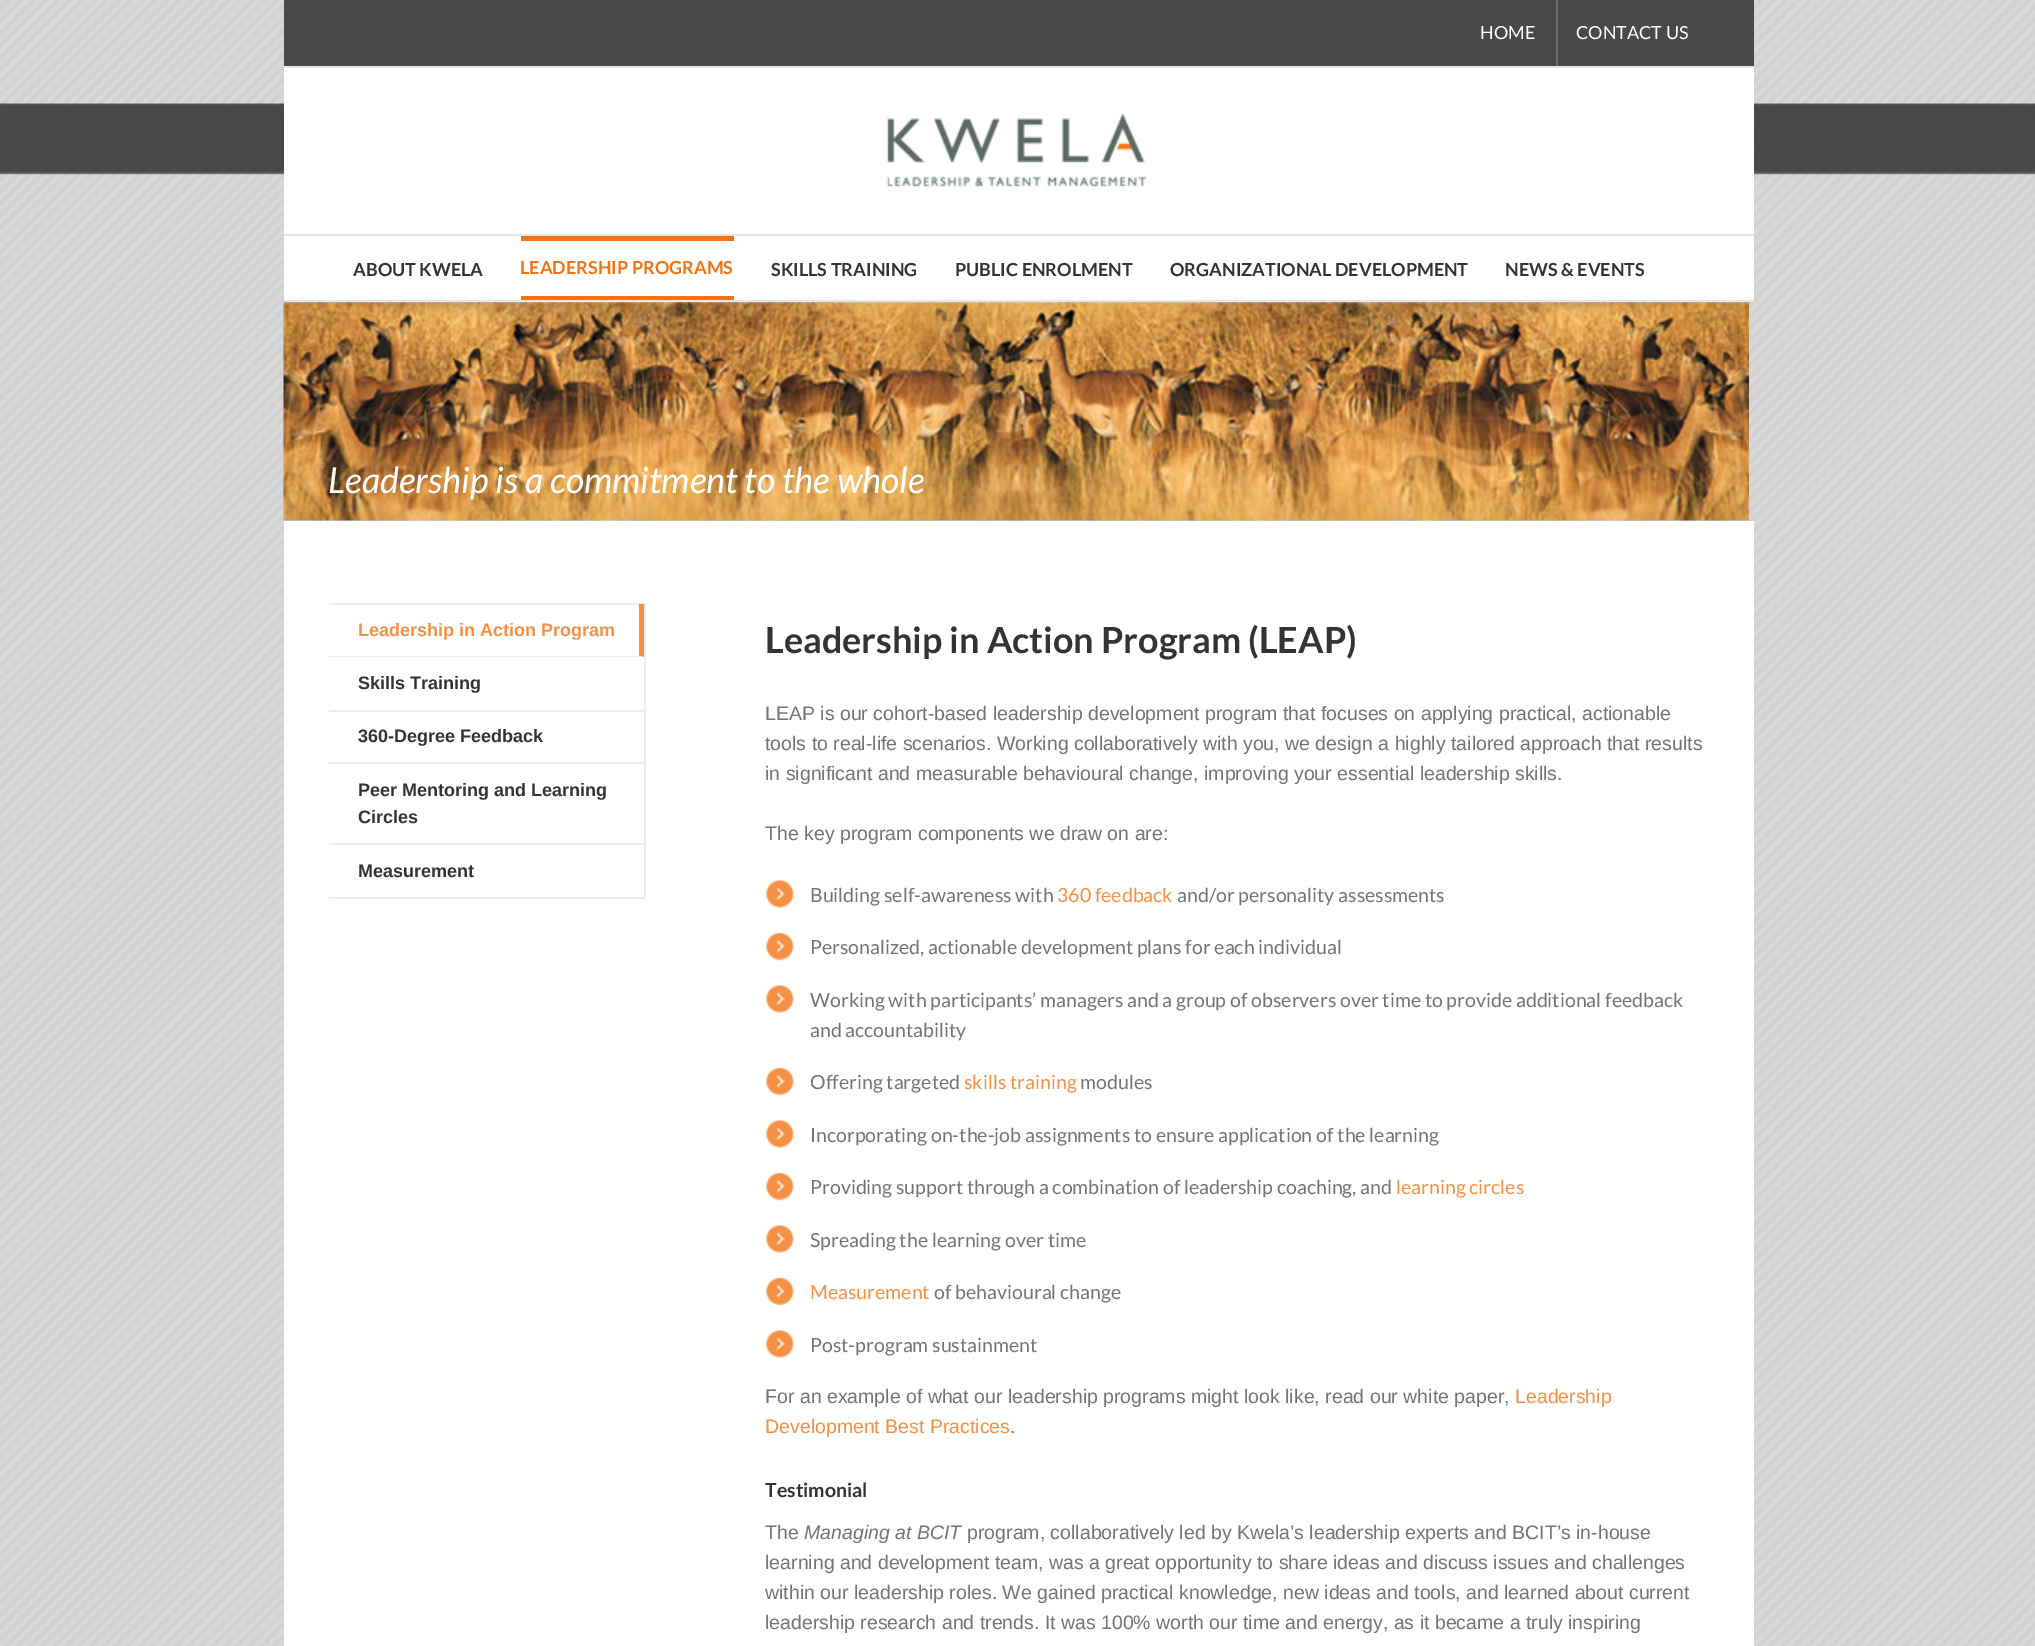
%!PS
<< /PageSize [2035 1646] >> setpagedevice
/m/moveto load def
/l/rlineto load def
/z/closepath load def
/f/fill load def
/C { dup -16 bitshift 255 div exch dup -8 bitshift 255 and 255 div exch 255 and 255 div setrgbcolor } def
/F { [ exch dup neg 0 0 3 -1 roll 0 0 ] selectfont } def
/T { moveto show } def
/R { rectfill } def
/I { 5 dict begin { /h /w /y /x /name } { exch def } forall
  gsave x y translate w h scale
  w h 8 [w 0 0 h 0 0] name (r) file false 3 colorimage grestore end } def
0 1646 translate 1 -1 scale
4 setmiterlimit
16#FFFFFF C
0 0 2035 1646 R
(1.rgb) 0 0 2035 1646 I
16#494949 C
284 0 1470 66 R
16#E5E5E5 C
284 66 1470 2 R
/Lato-Regular 18 F
16#FFFFFF C
(HOME) 1480 39 T
16#6A6A6A C
1556 0 2 66 R
16#FFFFFF C
(CONTACT US) 1576 39 T
284 68 1470 166 R
16#E5E5E5 C
284 234 1470 2 R
(2.rgb) 886 114 261 73 I
16#FFFFFF C
284 236 1470 64 R
(3.rgb) 283 301 1466 220 I
16#E5E5E5 C
284 300 1470 2 R
/Lato-Bold 18 F
16#333333 C
(ABOUT KWELA) 353 276 T
16#F37313 C
521 236 213 5 R
521 296 213 4 R
(LEADERSHIP PROGRAMS) 520 274 T
16#333333 C
(SKILLS TRAINING) 771 276 T
(PUBLIC ENROLMENT) 955 276 T
(ORGANIZATIONAL DEVELOPMENT) 1170 276 T
(NEWS & EVENTS) 1505 276 T
/Lato-Italic 36 F
16#FFFFFF C
(Leadership is a commitment to the whole) 328 493 T
284 521 1470 1125 R
16#EDEDED C
329 603 316 2 R
644 603 2 296 R
16#F58F42 C
644 604 m 0 53 l -5 -1 l 0 -52 l z f
16#EDEDED C
644 657 m -316 0 l 0 -1 l 311 0 l z f
/LiberationSans-Bold 18 F
16#F58F42 C
(Leadership in Action Program) 358 636 T
16#EDEDED C
329 710 315 2 R
16#333333 C
(Skills Training) 358 689 T
16#EDEDED C
329 762 315 2 R
16#333333 C
(360-Degree Feedback) 358 742 T
16#EDEDED C
329 843 315 2 R
16#333333 C
(Peer Mentoring and Learning) 358 796 T
(Circles) 358 823 T
16#EDEDED C
329 897 315 2 R
16#333333 C
(Measurement) 358 877 T
/Lato-Bold 36 F
(Leadership in Action Program \(LEAP\)) 765 653 T
/LiberationSans-Regular 19.5 F
16#747474 C
(LEAP is our cohort-based leadership development program that focuses on applying practical, actionable) 765 720 T
(tools to real-life scenarios. Working collaboratively with you, we design a highly tailored approach that results) 765 750 T
(in significant and measurable behavioural change, improving your essential leadership skills.) 765 780 T
(The key program components we draw on are:) 765 840 T
(4.rgb) 766 880 28 28 I
/Lato-Regular 19.5 F
(Building self-awareness with) 810 902 T
16#F58F42 C
(360 feedback) 1057 902 T
16#747474 C
(and/or personality assessments) 1177 902 T
(5.rgb) 766 932 28 29 I
(Personalized, actionable development plans for each individual) 810 954 T
(4.rgb) 766 985 28 28 I
(Working with participants’ managers and a group of observers over time to provide additional feedback) 810 1007 T
(and accountability) 810 1037 T
(5.rgb) 766 1067 28 29 I
(Offering targeted) 810 1089 T
16#F58F42 C
(skills training) 964 1089 T
16#747474 C
(modules) 1080 1089 T
(4.rgb) 766 1120 28 28 I
(Incorporating on-the-job assignments to ensure application of the learning) 810 1142 T
(5.rgb) 766 1172 28 29 I
(Providing support through a combination of leadership coaching, and) 810 1194 T
16#F58F42 C
(learning circles) 1396 1194 T
(4.rgb) 766 1225 28 28 I
16#747474 C
(Spreading the learning over time) 810 1247 T
(5.rgb) 766 1277 28 29 I
16#F58F42 C
(Measurement) 810 1299 T
16#747474 C
(of behavioural change) 934 1299 T
(4.rgb) 766 1330 28 28 I
(Post-program sustainment) 810 1352 T
/LiberationSans-Regular 19.5 F
(For an example of what our leadership programs might look like, read our white paper,) 765 1403 T
16#F58F42 C
(Leadership) 1515 1403 T
(Development Best Practices) 765 1433 T
16#747474 C
(.) 1010 1433 T
/Lato-Bold 19.5 F
16#333333 C
(Testimonial) 765 1497 T
/LiberationSans-Regular 19.5 F
16#747474 C
(The) 765 1539 T
/LiberationSans-Italic 19.5 F
(Managing at BCIT) 804 1539 T
/LiberationSans-Regular 19.5 F
(program, collaboratively led by Kwela’s leadership experts and BCIT’s in-house) 967 1539 T
(learning and development team, was a great opportunity to share ideas and discuss issues and challenges) 765 1569 T
(within our leadership roles. We gained practical knowledge, new ideas and tools, and learned about current) 765 1599 T
(leadership research and trends. It was 100% worth our time and energy, as it became a truly inspiring) 765 1629 T
showpage
